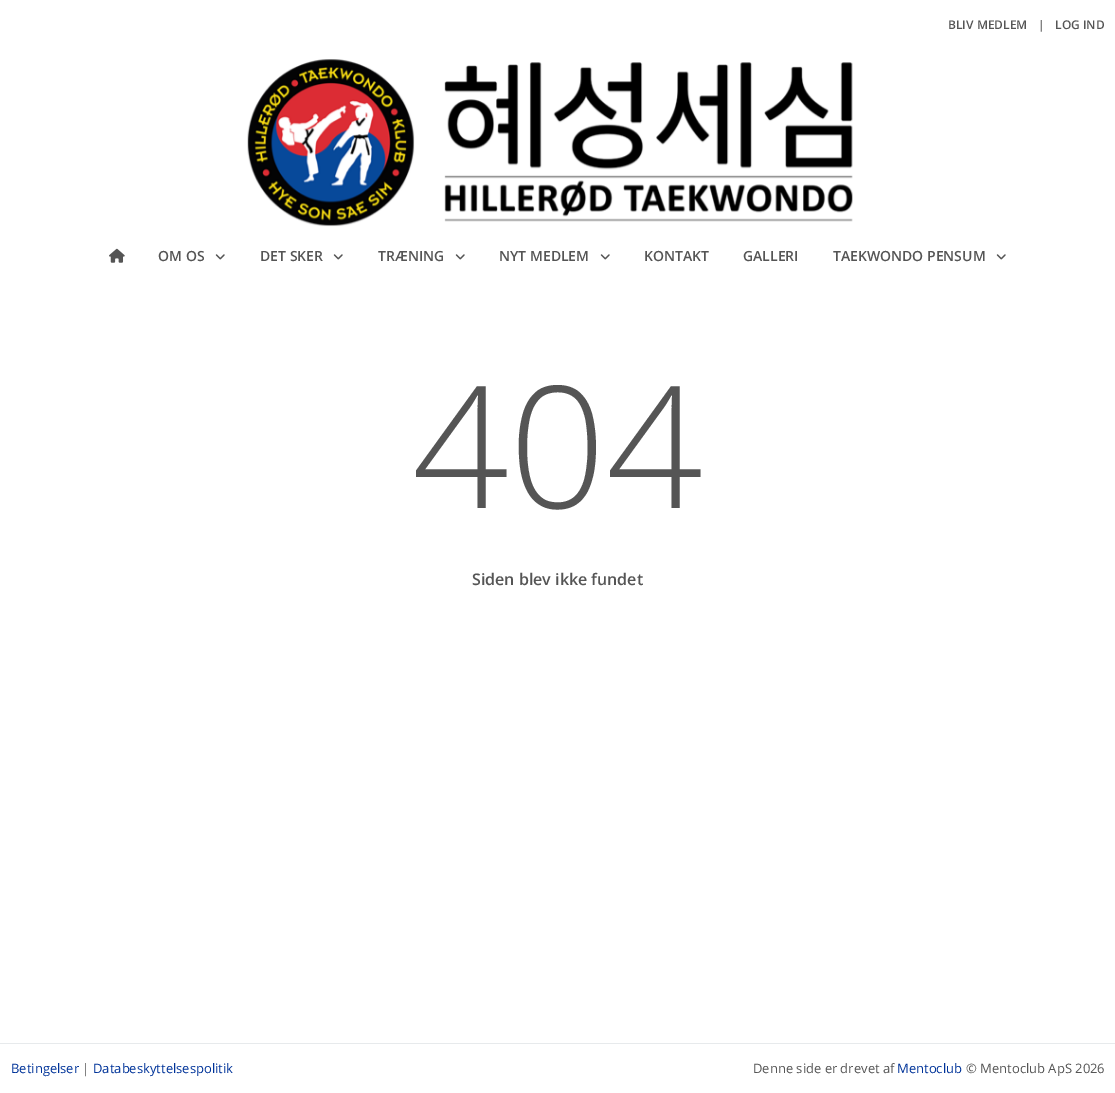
%!PS
<< /PageSize [1115 1093] >> setpagedevice
/C { dup -16 bitshift 255 div exch dup -8 bitshift 255 and 255 div exch 255 and 255 div setrgbcolor } def
/F { [ exch dup neg 0 0 3 -1 roll 0 0 ] selectfont } def
/T { moveto show } def
/R { rectfill } def
/I { 5 dict begin { /h /w /y /x /name } { exch def } forall
  gsave x y translate w h scale
  w h 8 [w 0 0 h 0 0] name (r) file false 3 colorimage grestore end } def
0 1093 translate 1 -1 scale
4 setmiterlimit
16#FFFFFF C
0 0 1115 1093 R
/OpenSans-SemiBold 12 F
16#555555 C
(BLIV MEDLEM) 948 29 T
(|) 1038 29 T
(LOG IND) 1055 29 T
(1.rgb) 247 59 606 168 I
(2.rgb) 109 248 16 15 I
/OpenSans-SemiBold 14 F
(OM OS) 158 261 T
(3.rgb) 215 254 10 6 I
(DET SKER) 260 261 T
(3.rgb) 333 254 10 6 I
(TRÆNING) 378 261 T
(3.rgb) 455 254 10 6 I
(NYT MEDLEM) 499 261 T
(3.rgb) 600 254 10 6 I
(KONTAKT) 644 261 T
(GALLERI) 743 261 T
(TAEKWONDO PENSUM) 833 261 T
(3.rgb) 996 254 10 6 I
/OpenSans-Light 170 F
(404) 412 508 T
/OpenSans-SemiBold 16 F
(Siden blev ikke fundet) 472 585 T
16#E7EAEC C
0 1043 1115 1 R
/OpenSans-Regular 13 F
16#003399 C
(Betingelser) 11 1073 T
16#555555 C
(|) 82 1073 T
16#003399 C
(Databeskyttelsespolitik) 93 1073 T
16#555555 C
(Denne side er drevet af) 753 1073 T
16#003399 C
(Mentoclub) 897 1073 T
16#555555 C
(© Mentoclub ApS 2026) 966 1073 T
showpage
